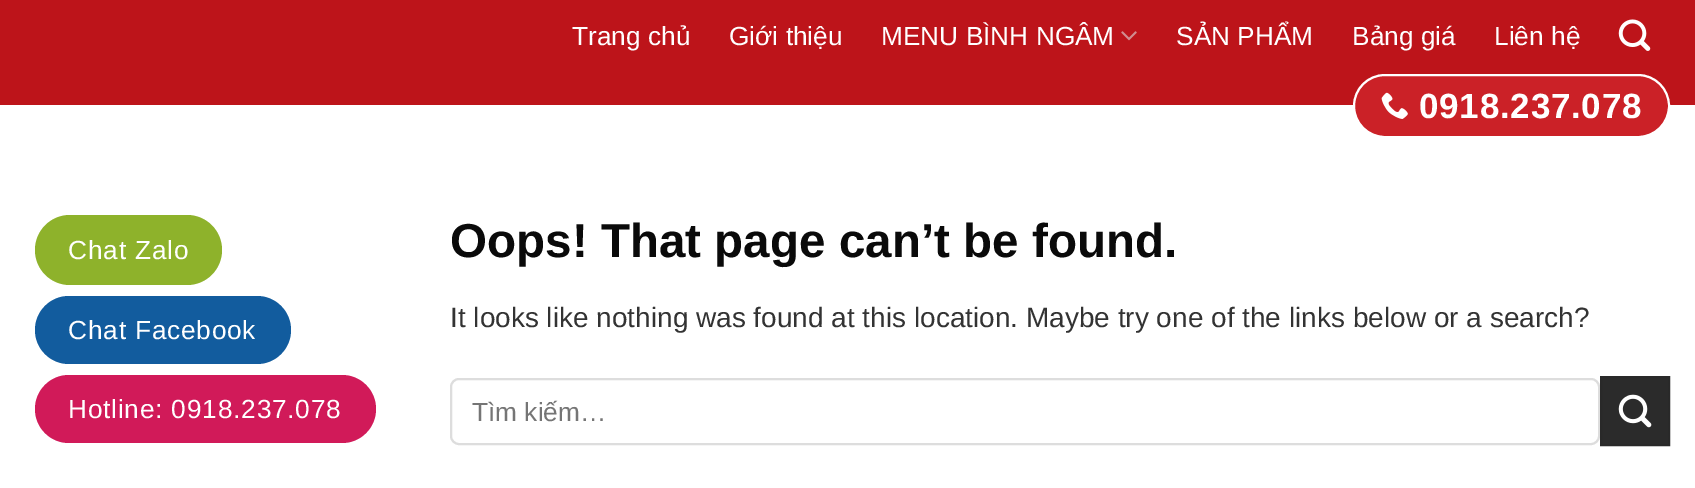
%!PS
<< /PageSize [1695 488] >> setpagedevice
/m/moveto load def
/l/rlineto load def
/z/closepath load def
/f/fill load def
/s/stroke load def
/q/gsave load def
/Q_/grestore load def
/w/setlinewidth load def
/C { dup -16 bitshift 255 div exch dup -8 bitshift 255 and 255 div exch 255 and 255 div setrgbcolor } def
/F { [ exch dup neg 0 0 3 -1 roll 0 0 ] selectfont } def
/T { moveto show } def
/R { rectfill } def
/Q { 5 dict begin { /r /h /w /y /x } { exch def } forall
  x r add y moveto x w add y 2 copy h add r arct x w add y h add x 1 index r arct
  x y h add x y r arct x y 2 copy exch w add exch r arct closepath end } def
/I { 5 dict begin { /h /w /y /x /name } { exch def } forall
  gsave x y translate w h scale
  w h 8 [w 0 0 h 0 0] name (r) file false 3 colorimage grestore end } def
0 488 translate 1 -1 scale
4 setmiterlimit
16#FFFFFF C
0 0 1695 488 R
16#8EB22B C
35 215 187 70 35 Q f
/LiberationSans-Regular 26.25 F
16#FFFFFF C
68 259 m .8 0 (Chat Zalo) ashow
16#125C9E C
35 296 256 68 34 Q f
16#FFFFFF C
68 339 m .8 0 (Chat Facebook) ashow
16#D11A59 C
35 375 341 68 34 Q f
16#FFFFFF C
68 418 m .8 0 (Hotline: 0918.237.078) ashow
16#BD141A C
0 0 1695 105 R
16#FFFFFF C
(Trang chủ) 572 45 T
(Giới thiệu) 729 45 T
(MENU BÌNH NGÂM) 881 45 T
(1.rgb) 1121 31 16 10 I
(SẢN PHẨM) 1176 45 T
(Bảng giá) 1352 45 T
(Liên hệ) 1494 45 T
(2.rgb) 1618 19 33 32 I
16#CB2127 C
1354 75 315 62 31 Q q f Q_
16#FFFFFF C
2 w
s
(3.rgb) 1381 92 27 27 I
/LiberationSans-Bold 35 F
1419 118 m .75 0 (0918.237.078) ashow
/LiberationSans-Bold 47.6 F
16#0A0A0A C
(Oops! That page can’t be found.) 450 257 T
/LiberationSans-Regular 28 F
16#333333 C
(It looks like nothing was found at this location. Maybe try one of the links below or a search?) 450 327 T
16#DDDDDD C
451 379 1148 65 8 Q s
/LiberationSans-Regular 26.25 F
16#757575 C
(Tìm kiếm…) 472 421 T
16#2B2B2B C
1601 377 m 68 0 l 0 68 l -68 0 l z q f Q_
16#292929 C
s
(4.rgb) 1618 394 34 34 I
showpage
